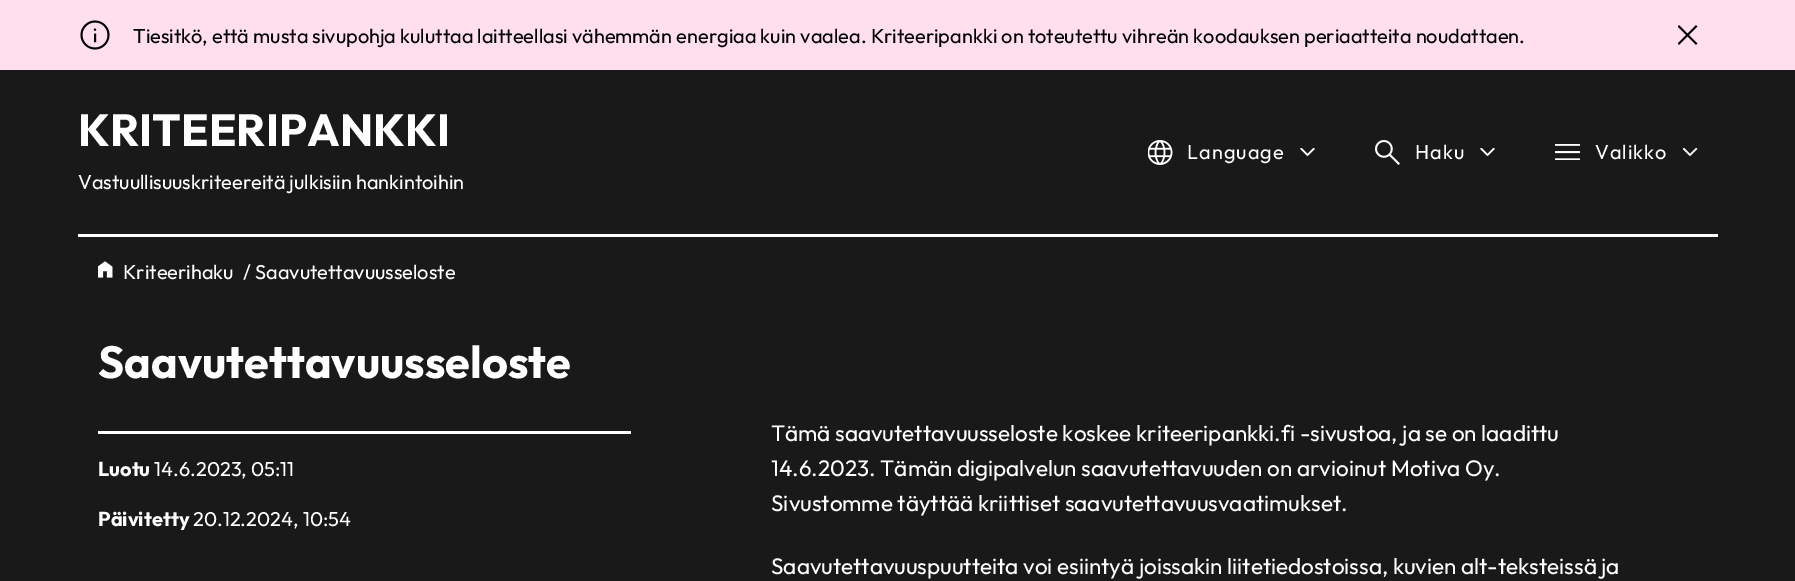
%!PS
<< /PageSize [1795 581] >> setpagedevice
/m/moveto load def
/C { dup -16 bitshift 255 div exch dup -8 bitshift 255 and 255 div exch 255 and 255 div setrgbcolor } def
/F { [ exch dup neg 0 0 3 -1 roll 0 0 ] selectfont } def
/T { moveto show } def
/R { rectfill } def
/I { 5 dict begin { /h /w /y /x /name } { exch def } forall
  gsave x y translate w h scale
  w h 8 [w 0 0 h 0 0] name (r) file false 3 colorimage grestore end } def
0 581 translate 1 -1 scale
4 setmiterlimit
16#191919 C
0 0 1795 581 R
16#FFDFEE C
0 0 1795 70 R
(1.rgb) 80 20 30 30 I
/Outfit-Regular 20 F
16#000000 C
(Tiesitkö, että musta sivupohja kuluttaa laitteellasi vähemmän energiaa kuin vaalea. Kriteeripankki on toteutettu vihreän koodauksen periaatteita noudattaen.) 133 43 T
(2.rgb) 1678 25 20 20 I
16#FFFFFF C
78 234 1640 3 R
/Outfit-Bold 45 F
(KRITEERIPANKKI) 78 146 T
/Outfit-Regular 20 F
(Vastuullisuuskriteereitä julkisiin hankintoihin) 78 189 T
(3.rgb) 1148 140 25 25 I
1187 159 m 1 0 (Language) ashow
(4.rgb) 1300 148 15 8 I
(5.rgb) 1375 140 25 25 I
1415 159 m 1 0 (Haku) ashow
(4.rgb) 1480 148 15 8 I
(6.rgb) 1555 144 25 16 I
1595 159 m 1 0 (Valikko) ashow
(7.rgb) 1683 148 15 8 I
(8.rgb) 98 261 15 17 I
(Kriteerihaku) 123 279 T
(/ Saavutettavuusseloste) 243 279 T
/Outfit-Bold 45 F
(Saavutettavuusseloste) 98 378 T
98 431 533 3 R
/Outfit-Bold 20 F
(Luotu) 98 476 T
/Outfit-Regular 20 F
(14.6.2023, 05:11) 154 476 T
/Outfit-Bold 20 F
(Päivitetty) 98 526 T
/Outfit-Regular 20 F
(20.12.2024, 10:54) 193 526 T
/Outfit-Regular 22.5 F
(Tämä saavutettavuusseloste koskee kriteeripankki.fi -sivustoa, ja se on laadittu) 771 441 T
(14.6.2023. Tämän digipalvelun saavutettavuuden on arvioinut Motiva Oy.) 771 476 T
(Sivustomme täyttää kriittiset saavutettavuusvaatimukset.) 771 511 T
(Saavutettavuuspuutteita voi esiintyä joissakin liitetiedostoissa, kuvien alt-teksteissä ja) 771 574 T
showpage
